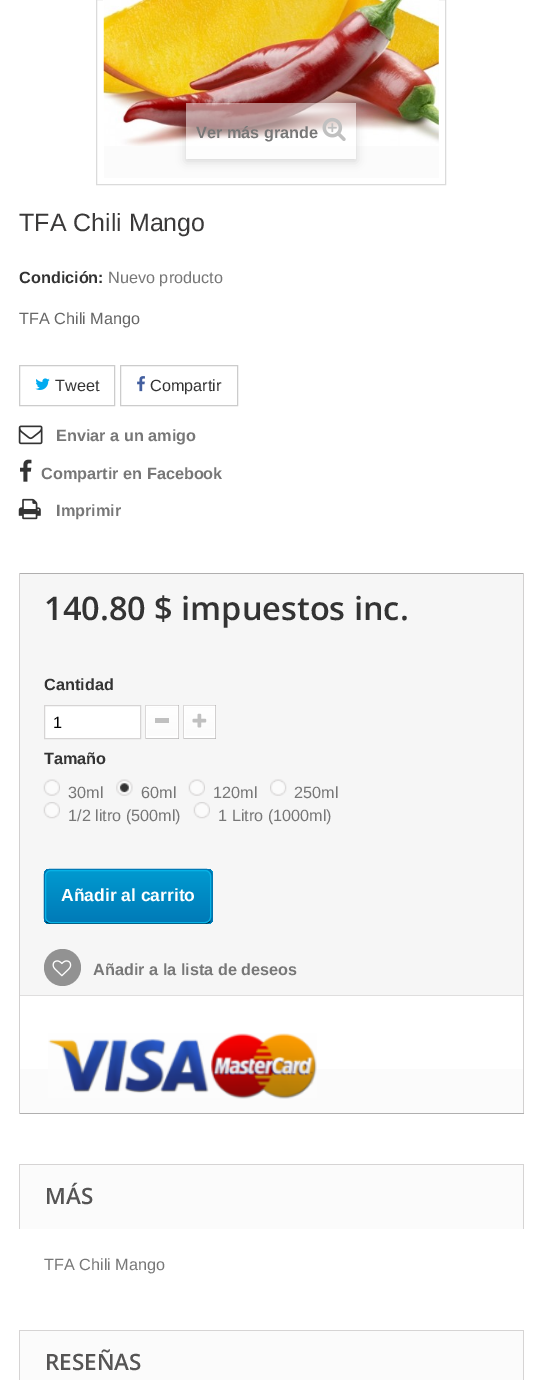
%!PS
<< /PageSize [542 1380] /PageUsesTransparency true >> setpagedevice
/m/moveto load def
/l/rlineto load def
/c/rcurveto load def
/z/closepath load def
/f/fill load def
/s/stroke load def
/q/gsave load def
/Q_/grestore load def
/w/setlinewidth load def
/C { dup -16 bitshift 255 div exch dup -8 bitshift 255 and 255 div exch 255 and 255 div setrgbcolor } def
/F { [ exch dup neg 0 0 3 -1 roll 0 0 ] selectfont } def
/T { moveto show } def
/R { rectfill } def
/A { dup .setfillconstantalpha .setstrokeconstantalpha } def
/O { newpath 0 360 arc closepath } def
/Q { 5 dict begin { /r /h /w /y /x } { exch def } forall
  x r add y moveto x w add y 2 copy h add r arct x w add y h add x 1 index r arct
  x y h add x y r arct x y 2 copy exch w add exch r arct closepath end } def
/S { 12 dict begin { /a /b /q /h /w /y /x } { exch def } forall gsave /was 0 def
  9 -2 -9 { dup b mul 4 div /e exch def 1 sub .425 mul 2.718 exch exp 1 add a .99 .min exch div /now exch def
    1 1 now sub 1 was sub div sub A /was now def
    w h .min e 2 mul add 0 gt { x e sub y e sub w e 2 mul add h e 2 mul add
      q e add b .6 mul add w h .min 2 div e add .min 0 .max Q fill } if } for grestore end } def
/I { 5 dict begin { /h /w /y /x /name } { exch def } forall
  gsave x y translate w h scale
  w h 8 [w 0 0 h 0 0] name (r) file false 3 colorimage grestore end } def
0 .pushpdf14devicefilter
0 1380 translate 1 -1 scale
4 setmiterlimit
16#FFFFFF C
0 0 542 1380 R
16#DBDBDB C
96.5 -.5 349 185 rectstroke
16#FBFBFB C
104 0 335 178 R
(1.rgb) 103 0 336 146 I
q
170 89 m 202 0 l 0 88 l -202 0 l z 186 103 m 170 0 l 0 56 l -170 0 l z eoclip newpath
16#000000 C
186 105 170 56 0 5 .16 S
Q_
0.5 A
16#FFFFFF C
186 103 170 56 R
/LiberationSans-Bold 16.25 F
1 A
16#777777 C
(Ver más grande) 196 138 T
(2.rgb) 322 117 24 24 I
/LiberationSans-Regular 25 F
16#3A3939 C
(TFA Chili Mango) 19 231 T
/LiberationSans-Bold 16.25 F
16#333333 C
(Condición:) 19 283 T
/LiberationSans-Regular 16.25 F
16#777777 C
(Nuevo producto) 108 283 T
16#666666 C
(TFA Chili Mango) 19 324 T
16#CCCCCC C
19.5 365.5 95 40 rectstroke
(3.rgb) 35 378 15 12 I
16#333333 C
(Tweet) 55 391 T
16#CCCCCC C
120.5 365.5 117 40 rectstroke
(4.rgb) 137 376 8 16 I
16#333333 C
(Compartir) 150 391 T
(5.rgb) 18 425 25 20 I
/LiberationSans-Bold 16.25 F
16#777777 C
(Enviar a un amigo) 56 441 T
(6.rgb) 20 459 12 23 I
(Compartir en Facebook) 41 479 T
(7.rgb) 18 498 23 22 I
(Imprimir) 56 516 T
16#F6F6F6 C
20 574 503 421 R
16#B0AFAF C
19 573 505 1 R
16#D2D0D0 C
523 573 1 541 R
16#B0AFAF C
19 1113 505 1 R
16#D2D0D0 C
19 573 1 541 R
/OpenSans-SemiBold 32.5 F
16#333333 C
(140.80 $ impuestos inc.) 44 620 T
/LiberationSans-Bold 16.25 F
(Cantidad) 44 690 T
16#FFFFFF C
44.5 705.5 m 96 0 l 0 33 l -96 0 l z q f Q_
16#D6D4D4 C
s
/LiberationSans-Regular 16.25 F
16#000000 C
(1) 53 728 T
16#FFFFFF C
147 736 30 1 R
16#DEDCDC C
145 705 34 1 R
16#C1BFBF C
178 705 1 34 R
16#B5B4B4 C
145 738 34 1 R
16#DAD8D8 C
145 705 1 34 R
q 146 707 m 32 0 l 0 1 l -32 0 l z clip newpath
<< /ShadingType 2 /ColorSpace /DeviceRGB /Coords [162 679 162 708] /Extend [true true] /Function << /FunctionType 2 /Domain [0 1] /C0 [1 1 1] /C1 [.984 .984 .984] /N 1 >> >> shfill Q_
q 147 708 m 30 0 l 0 28 l -30 0 l z clip newpath
<< /ShadingType 2 /ColorSpace /DeviceRGB /Coords [162 708 162 736] /Extend [true true] /Function << /FunctionType 2 /Domain [0 1] /C0 [1 1 1] /C1 [.984 .984 .984] /N 1 >> >> shfill Q_
16#FFFFFF C
146.5 706.5 31 31 rectstroke
16#C0C0C0 C
155 718 14 5 R
16#FFFFFF C
185 736 29 1 R
16#DEDCDC C
183 705 33 1 R
16#C1BFBF C
215 705 1 34 R
16#B5B4B4 C
183 738 33 1 R
16#DAD8D8 C
183 705 1 34 R
q 184 707 m 31 0 l 0 1 l -31 0 l z clip newpath
<< /ShadingType 2 /ColorSpace /DeviceRGB /Coords [199 679 199 708] /Extend [true true] /Function << /FunctionType 2 /Domain [0 1] /C0 [1 1 1] /C1 [.984 .984 .984] /N 1 >> >> shfill Q_
q 185 708 m 29 0 l 0 28 l -29 0 l z clip newpath
<< /ShadingType 2 /ColorSpace /DeviceRGB /Coords [199 708 199 736] /Extend [true true] /Function << /FunctionType 2 /Domain [0 1] /C0 [1 1 1] /C1 [.984 .984 .984] /N 1 >> >> shfill Q_
16#FFFFFF C
184.5 706.5 30 31 rectstroke
(8.rgb) 192 713 15 15 I
/LiberationSans-Bold 16.25 F
16#333333 C
(Tamaño) 44 764 T
(9.rgb) 43 779 17 17 I
/LiberationSans-Regular 16.25 F
16#777777 C
(30ml) 68 798 T
(10.rgb) 116 779 17 17 I
(60ml) 141 798 T
(9.rgb) 188 779 17 17 I
(120ml) 213 798 T
(11.rgb) 270 779 17 17 I
(250ml) 294 798 T
(12.rgb) 43 802 17 17 I
(1/2 litro \(500ml\)) 68 821 T
(12.rgb) 193 802 17 17 I
(1 Litro \(1000ml\)) 218 821 T
q
44 869 169 55 6 Q clip newpath
q 44 869 m 169 0 l 0 1 l -169 0 l z clip newpath
<< /ShadingType 2 /ColorSpace /DeviceRGB /Coords [128 818 128 870] /Extend [true true] /Function << /FunctionType 2 /Domain [0 1] /C0 [0 .604 .816] /C1 [0 .478 .718] /N 1 >> >> shfill Q_
q 44 870 m 169 0 l 0 53 l -169 0 l z clip newpath
<< /ShadingType 2 /ColorSpace /DeviceRGB /Coords [128 870 128 923] /Extend [true true] /Function << /FunctionType 2 /Domain [0 1] /C0 [0 .604 .816] /C1 [0 .478 .718] /N 1 >> >> shfill Q_
q 44 923 m 169 0 l 0 1 l -169 0 l z clip newpath
<< /ShadingType 2 /ColorSpace /DeviceRGB /Coords [128 923 128 975] /Extend [true true] /Function << /FunctionType 2 /Domain [0 1] /C0 [0 .604 .816] /C1 [0 .478 .718] /N 1 >> >> shfill Q_
Q_
16#0079B6 C
1.2 w
46 871 m 1 -1 2.5 -1.5 4 -1.5 c 156 0 l 1.5 0 3 .5 4 1.5 c s
16#006FA8 C
210 871 m 1.5 1 2 2.5 2 4 c 0 42.5 l 0 1.5 -.5 3 -2 4 c s
16#012740 C
210 921.5 m -1 1 -2.5 1.5 -4 1.5 c -156 0 l -1.5 0 -3 -.5 -4 -1.5 c s
16#006FA8 C
46 921.5 m -1 -1 -1.5 -2.5 -1.5 -4 c 0 -42.5 l 0 -1.5 .5 -3 1.5 -4 c s
16#06B2E6 C
1 w
45.5 870.5 165 52 5.5 Q s
/LiberationSans-Bold 17.5 F
16#FFFFFF C
(Añadir al carrito) 61 901 T
16#929292 C
62.5 967.5 18.5 O f
(13.rgb) 52 960 20 17 I
/LiberationSans-Bold 16.25 F
16#777777 C
(Añadir a la lista de deseos) 93 975 T
q 20 1069 m 503 0 l 0 44 l -503 0 l z clip newpath
<< /ShadingType 2 /ColorSpace /DeviceRGB /Coords [271 996 271 1113] /Extend [true true] /Function << /FunctionType 2 /Domain [0 1] /C0 [1 1 1] /C1 [.984 .984 .984] /N 1 >> >> shfill Q_
16#DFDEDE C
20 995 503 1 R
(14.rgb) 48 1033 269 66 I
16#FBFBFB C
20 1165 503 64 R
16#D6D4D4 C
19 1164 505 1 R
523 1164 1 65 R
19 1164 1 65 R
/OpenSans-SemiBold 22.5 F
16#555454 C
(MÁS) 45 1204 T
/LiberationSans-Regular 16.25 F
16#777777 C
(TFA Chili Mango) 44 1270 T
16#FBFBFB C
20 1331 503 49 R
16#D6D4D4 C
19 1330 505 1 R
523 1330 1 50 R
19 1330 1 50 R
/OpenSans-SemiBold 22.5 F
16#555454 C
(RESEÑAS) 45 1370 T
.poppdf14devicefilter showpage
